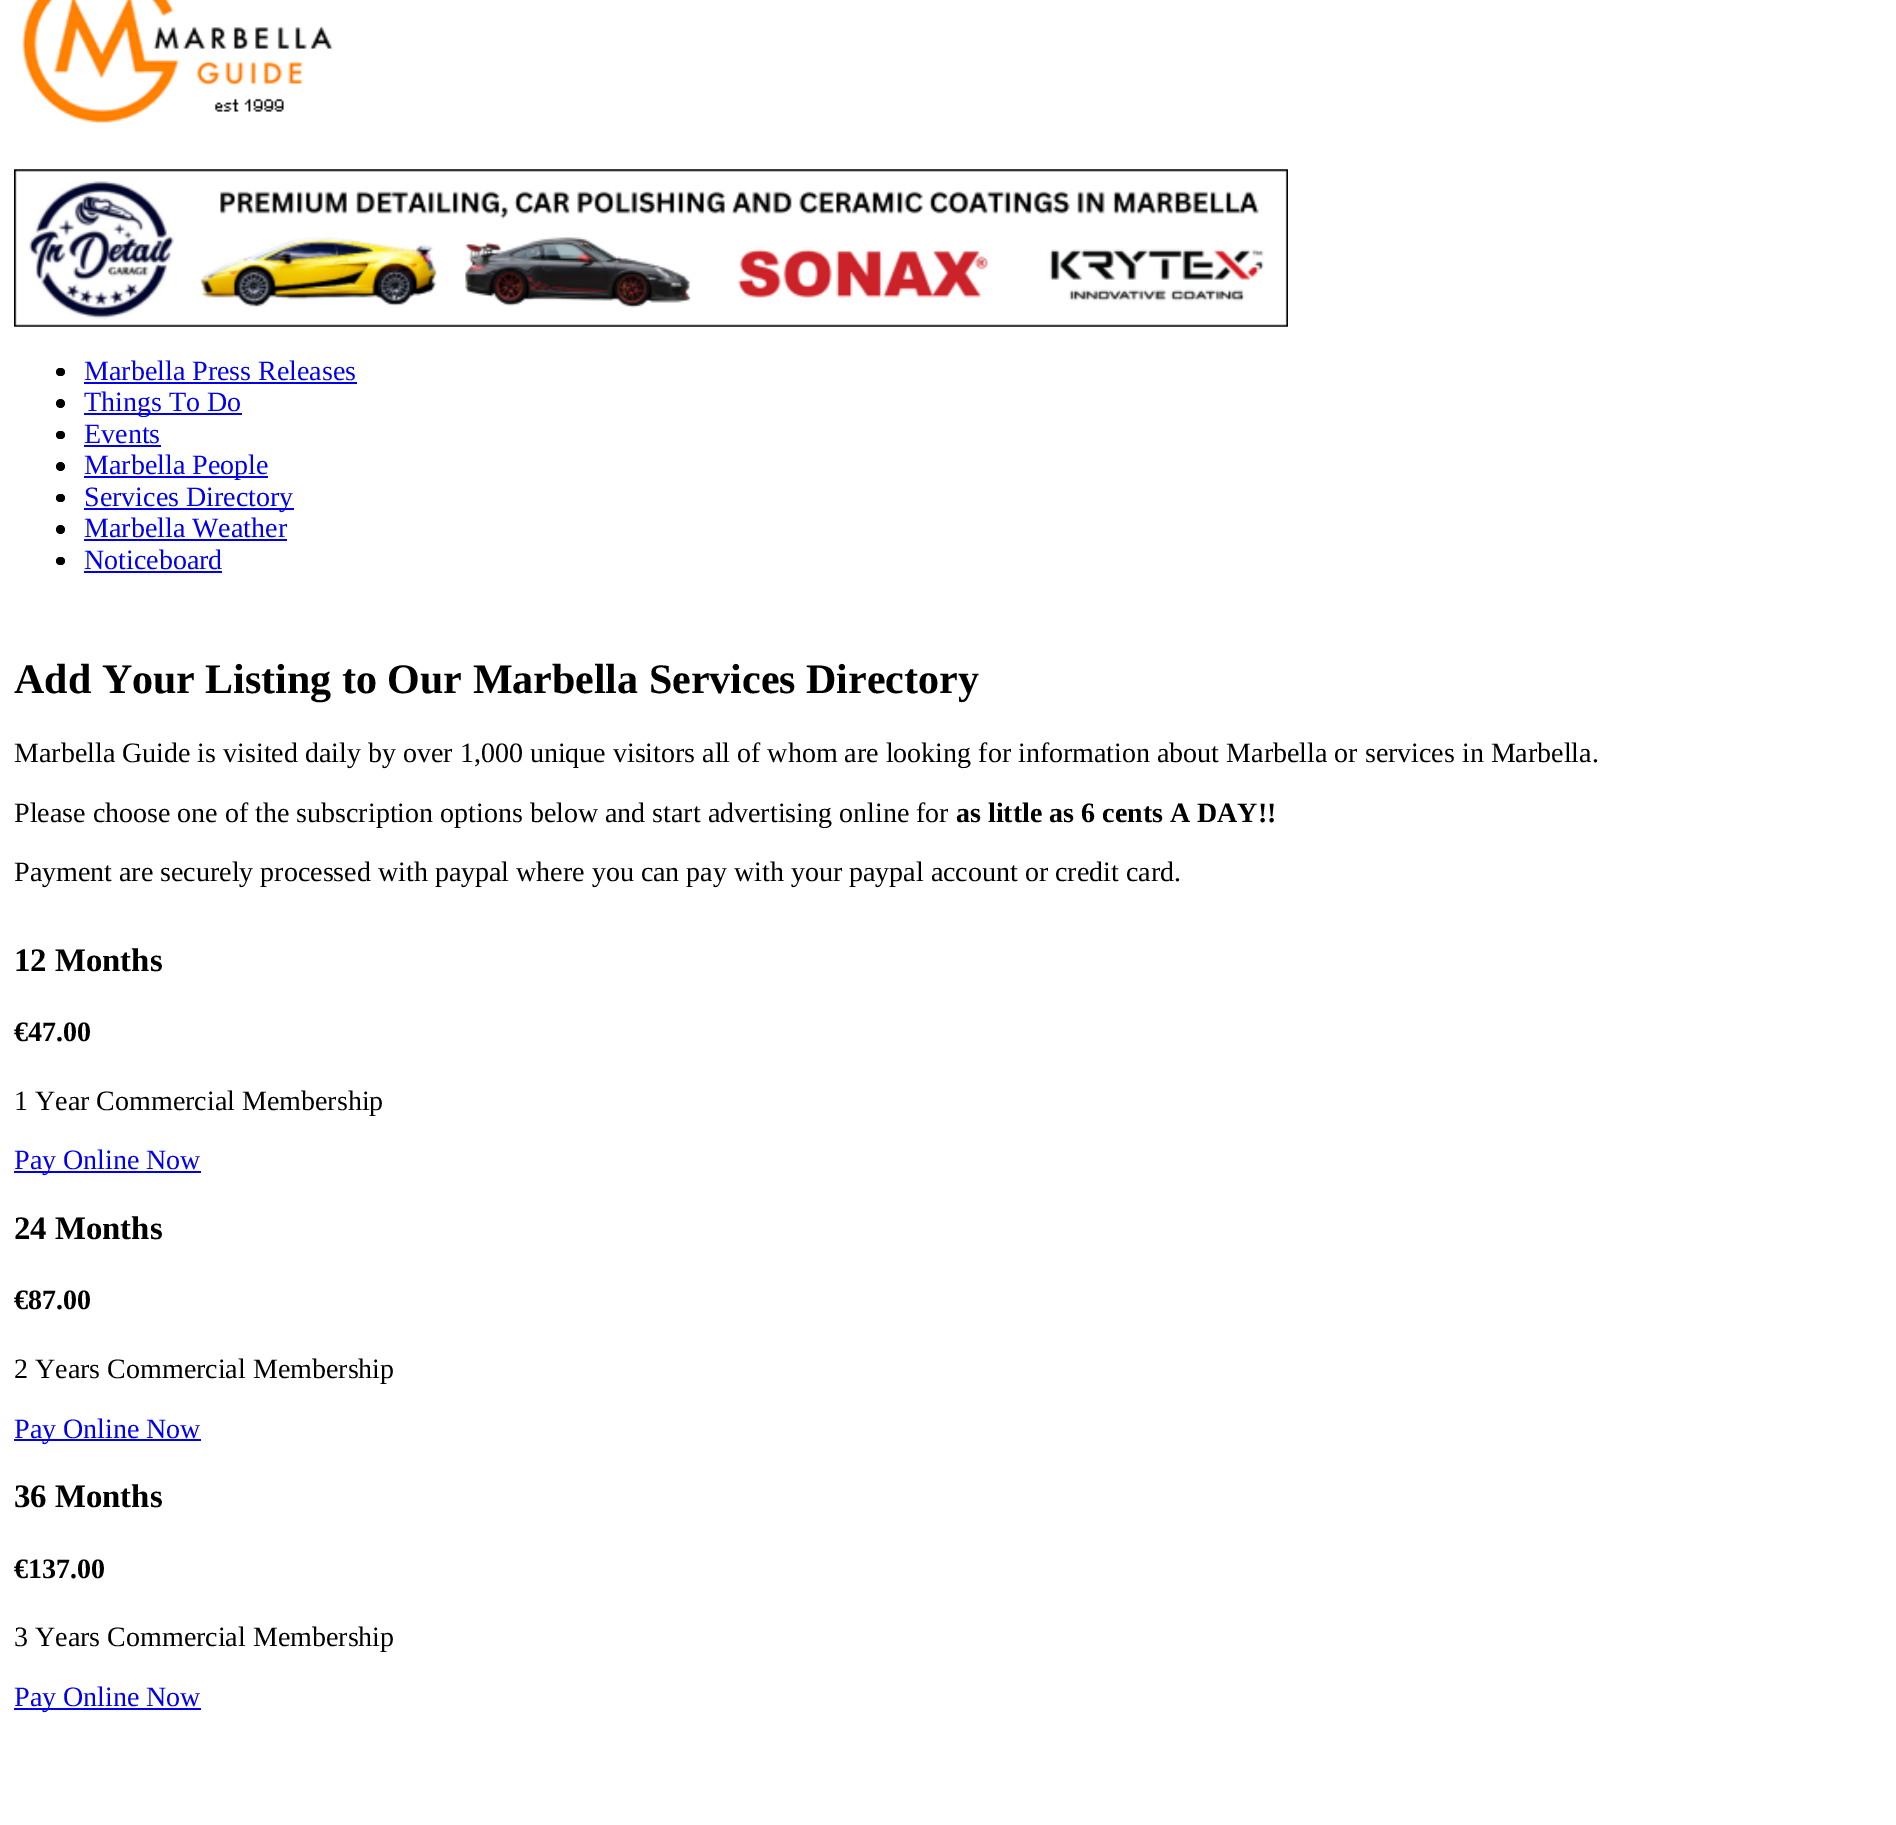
%!PS
<< /PageSize [1896 1825] >> setpagedevice
/f/fill load def
/C { dup -16 bitshift 255 div exch dup -8 bitshift 255 and 255 div exch 255 and 255 div setrgbcolor } def
/F { [ exch dup neg 0 0 3 -1 roll 0 0 ] selectfont } def
/T { moveto show } def
/R { rectfill } def
/O { newpath 0 360 arc closepath } def
/Q { 5 dict begin { /r /h /w /y /x } { exch def } forall
  x r add y moveto x w add y 2 copy h add r arct x w add y h add x 1 index r arct
  x y h add x y r arct x y 2 copy exch w add exch r arct closepath end } def
/I { 5 dict begin { /h /w /y /x /name } { exch def } forall
  gsave x y translate w h scale
  w h 8 [w 0 0 h 0 0] name (r) file false 3 colorimage grestore end } def
0 1825 translate 1 -1 scale
4 setmiterlimit
16#FFFFFF C
0 0 1896 1825 R
(1.rgb) 22 0 311 123 I
(2.rgb) 14 169 1274 158 I
16#000000 C
56 368 9 8 4 Q f
/LiberationSerif-Regular 28 F
16#0000EE C
(Marbella Press Releases) 84 380 T
84 382 273 2 R
16#000000 C
60.5 403.5 4.5 O f
16#0000EE C
84 413 158 2 R
(Things To Do) 84 411 T
16#000000 C
56 431 9 8 4 Q f
16#0000EE C
(Events) 84 443 T
84 445 77 2 R
16#000000 C
60.5 466.5 4.5 O f
16#0000EE C
84 476 184 2 R
(Marbella People) 84 474 T
16#000000 C
56 494 9 8 4 Q f
16#0000EE C
84 508 210 2 R
(Services Directory) 84 506 T
16#000000 C
60.5 529.5 4.5 O f
16#0000EE C
(Marbella Weather) 84 537 T
84 539 203 2 R
16#000000 C
56 557 9 8 4 Q f
16#0000EE C
(Noticeboard) 84 569 T
84 571 138 2 R
/LiberationSerif-Bold 42 F
16#000000 C
(Add Your Listing to Our Marbella Services Directory) 14 693 T
/LiberationSerif-Regular 28 F
(Marbella Guide is visited daily by over 1,000 unique visitors all of whom are looking for information about Marbella or services in Marbella.) 14 762 T
(Please choose one of the subscription options below and start advertising online for) 14 822 T
/LiberationSerif-Bold 28 F
(as little as 6 cents A DAY!!) 956 822 T
/LiberationSerif-Regular 28 F
(Payment are securely processed with paypal where you can pay with your paypal account or credit card.) 14 881 T
/LiberationSerif-Bold 32.75 F
(12 Months) 14 971 T
/LiberationSerif-Bold 28 F
(€47.00) 14 1041 T
/LiberationSerif-Regular 28 F
(1 Year Commercial Membership) 14 1110 T
16#0000EE C
14 1171 187 2 R
(Pay Online Now) 14 1169 T
/LiberationSerif-Bold 32.75 F
16#000000 C
(24 Months) 14 1239 T
/LiberationSerif-Bold 28 F
(€87.00) 14 1309 T
/LiberationSerif-Regular 28 F
(2 Years Commercial Membership) 14 1378 T
16#0000EE C
14 1439 187 2 R
(Pay Online Now) 14 1438 T
/LiberationSerif-Bold 32.75 F
16#000000 C
(36 Months) 14 1507 T
/LiberationSerif-Bold 28 F
(€137.00) 14 1578 T
/LiberationSerif-Regular 28 F
(3 Years Commercial Membership) 14 1646 T
16#0000EE C
14 1708 187 2 R
(Pay Online Now) 14 1706 T
showpage
